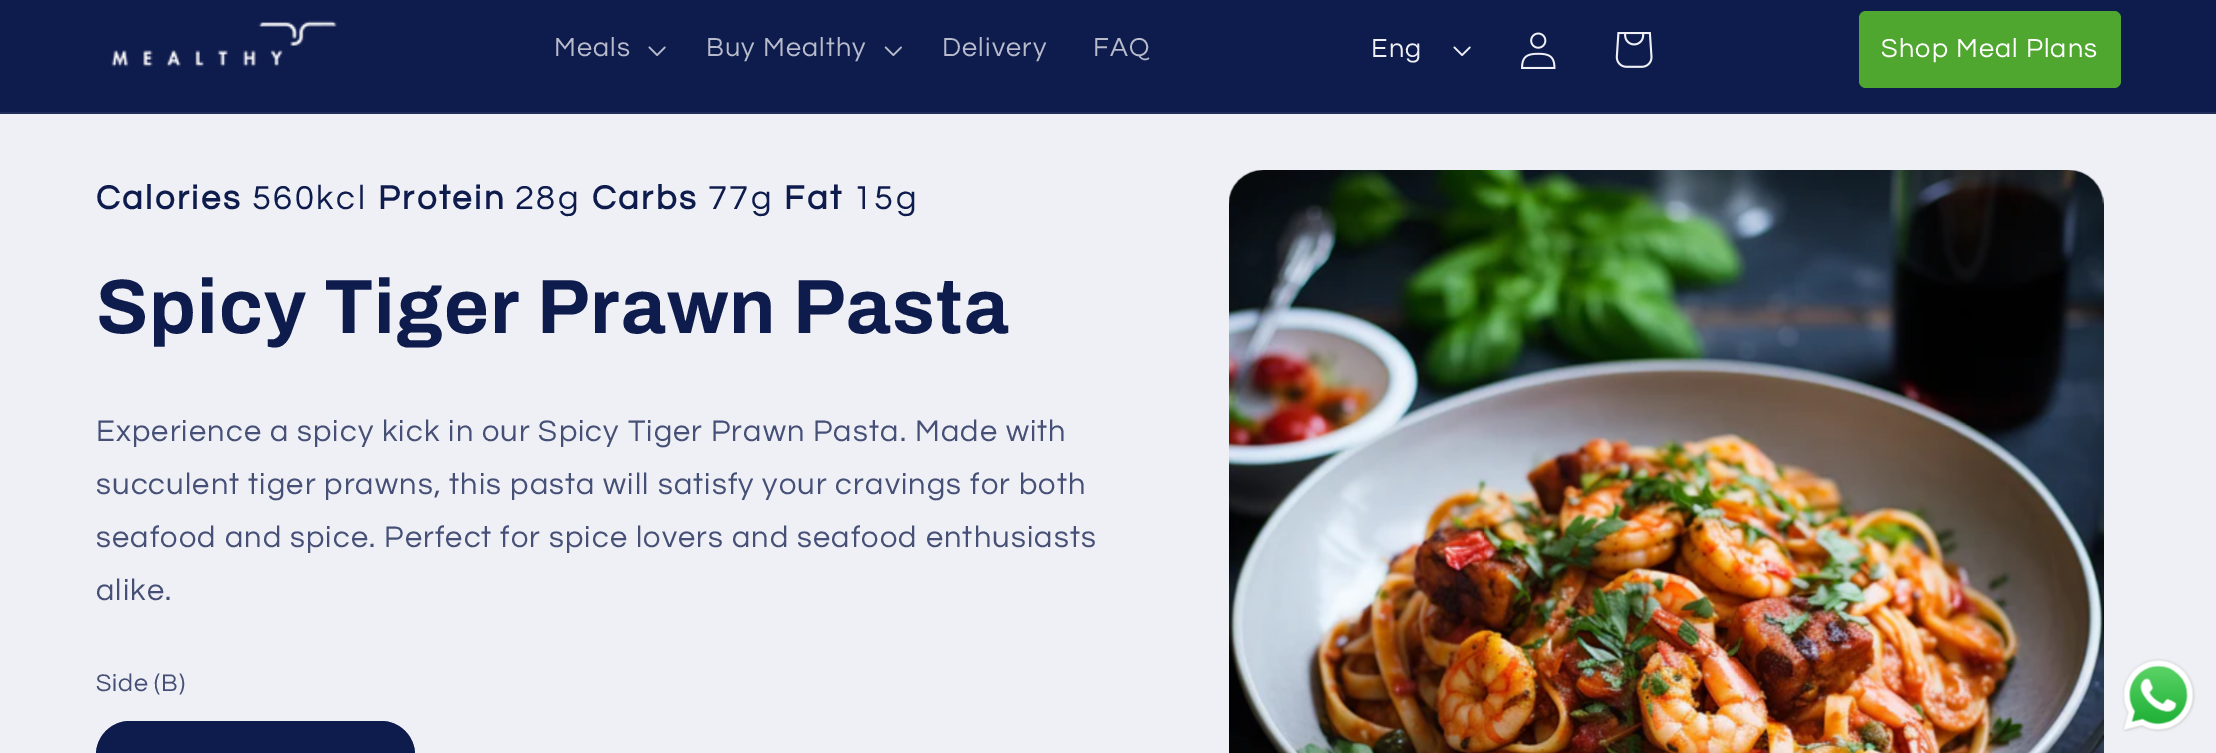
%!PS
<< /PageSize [2216 753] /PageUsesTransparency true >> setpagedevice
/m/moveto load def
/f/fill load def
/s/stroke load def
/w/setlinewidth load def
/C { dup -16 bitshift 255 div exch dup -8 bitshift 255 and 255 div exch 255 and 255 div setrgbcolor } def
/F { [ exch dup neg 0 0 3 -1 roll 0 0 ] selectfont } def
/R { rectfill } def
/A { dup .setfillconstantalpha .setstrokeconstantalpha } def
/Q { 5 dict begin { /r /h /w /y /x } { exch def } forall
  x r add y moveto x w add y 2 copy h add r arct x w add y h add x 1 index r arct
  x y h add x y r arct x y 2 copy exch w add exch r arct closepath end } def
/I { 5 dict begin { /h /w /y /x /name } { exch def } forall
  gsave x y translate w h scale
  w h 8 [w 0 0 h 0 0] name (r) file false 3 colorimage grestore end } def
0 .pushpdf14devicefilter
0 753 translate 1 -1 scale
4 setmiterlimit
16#EFF0F5 C
0 0 2216 753 R
16#0E1B4D C
0 0 2216 112 R
16#202C5A C
0 112 2216 2 R
(1.rgb) 111 20 226 47 I
/Questrial-Regular 27 F
16#B7BBCB C
554 56 m 1.15 0 (Meals) ashow
(2.rgb) 648 46 18 10 I
706 56 m 1.15 0 (Buy Mealthy) ashow
(3.rgb) 884 46 18 10 I
942 56 m 1.15 0 (Delivery) ashow
1093 56 m 1.15 0 (FAQ) ashow
16#EFF0F5 C
1371 57 m 1.15 0 (Eng) ashow
(4.rgb) 1453 46 18 10 I
(5.rgb) 1521 32 35 37 I
(6.rgb) 1615 32 38 36 I
16#4FA730 C
1859 11 262 77 7 Q f
16#FFFFFF C
1881 57 m 1.15 0 (Shop Meal Plans) ashow
/Questrial-Bold 34.5 F
16#0E1B4D C
96 209 m 2.5 0 (Calories) ashow
/Questrial-Regular 34.5 F
252 209 m 2.5 0 (560kcl) ashow
/Questrial-Bold 34.5 F
378 209 m 2.5 0 (Protein) ashow
/Questrial-Regular 34.5 F
515 209 m 2.5 0 (28g) ashow
/Questrial-Bold 34.5 F
592 209 m 2.5 0 (Carbs) ashow
/Questrial-Regular 34.5 F
708 209 m 2.5 0 (77g) ashow
/Questrial-Bold 34.5 F
784 209 m 2.5 0 (Fat) ashow
/Questrial-Regular 34.5 F
853 209 m 2.5 0 (15g) ashow
/Archivo-Bold 77 F
96 333 m 1.15 0 (Spicy Tiger Prawn Pasta) ashow
/Questrial-Regular 30.8 F
16#465077 C
96 441 m 1.15 0 (Experience a spicy kick in our Spicy Tiger Prawn Pasta. Made with) ashow
96 494 m 1.15 0 (succulent tiger prawns, this pasta will satisfy your cravings for both) ashow
96 547 m 1.15 0 (seafood and spice. Perfect for spice lovers and seafood enthusiasts) ashow
96 600 m 1.15 0 (alike.) ashow
/Questrial-Regular 25 F
96 691 m .75 0 (Side \(B\)) ashow
16#0E1B4D C
96 721 319 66 34 Q f
0.55 A
2 w
97 722 317 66 33 Q s
1 A
(7.rgb) 1229 170 875 583 I
(8.rgb) 2122 658 74 74 I
.poppdf14devicefilter showpage
